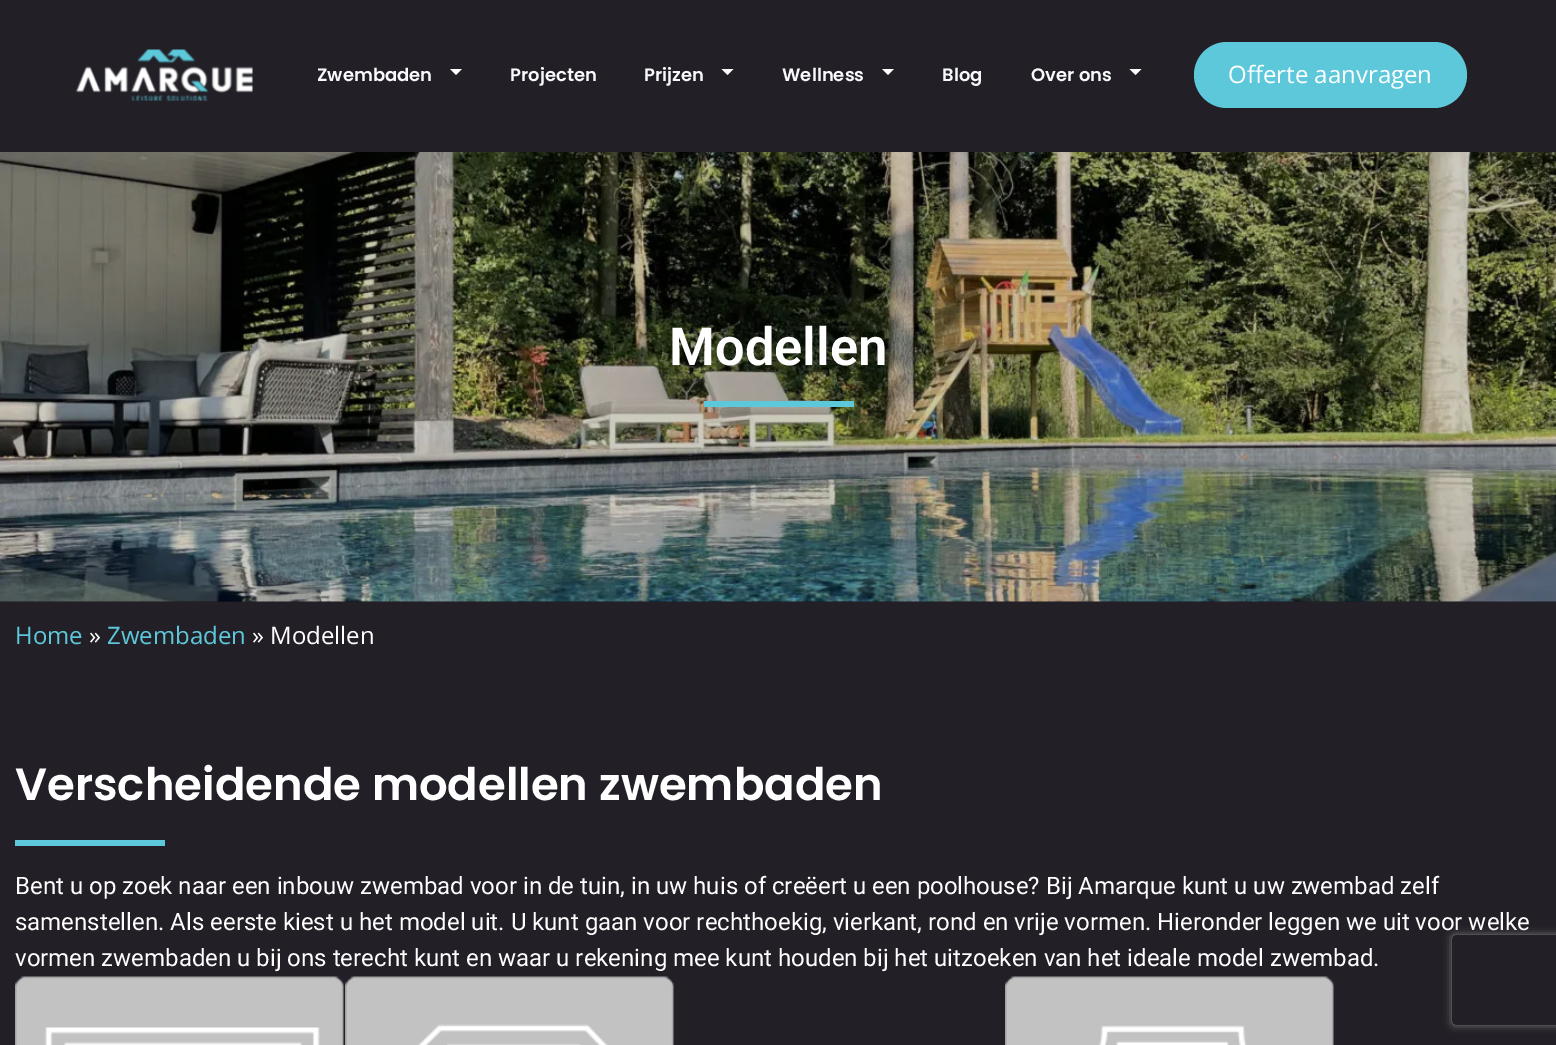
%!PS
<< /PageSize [1556 1045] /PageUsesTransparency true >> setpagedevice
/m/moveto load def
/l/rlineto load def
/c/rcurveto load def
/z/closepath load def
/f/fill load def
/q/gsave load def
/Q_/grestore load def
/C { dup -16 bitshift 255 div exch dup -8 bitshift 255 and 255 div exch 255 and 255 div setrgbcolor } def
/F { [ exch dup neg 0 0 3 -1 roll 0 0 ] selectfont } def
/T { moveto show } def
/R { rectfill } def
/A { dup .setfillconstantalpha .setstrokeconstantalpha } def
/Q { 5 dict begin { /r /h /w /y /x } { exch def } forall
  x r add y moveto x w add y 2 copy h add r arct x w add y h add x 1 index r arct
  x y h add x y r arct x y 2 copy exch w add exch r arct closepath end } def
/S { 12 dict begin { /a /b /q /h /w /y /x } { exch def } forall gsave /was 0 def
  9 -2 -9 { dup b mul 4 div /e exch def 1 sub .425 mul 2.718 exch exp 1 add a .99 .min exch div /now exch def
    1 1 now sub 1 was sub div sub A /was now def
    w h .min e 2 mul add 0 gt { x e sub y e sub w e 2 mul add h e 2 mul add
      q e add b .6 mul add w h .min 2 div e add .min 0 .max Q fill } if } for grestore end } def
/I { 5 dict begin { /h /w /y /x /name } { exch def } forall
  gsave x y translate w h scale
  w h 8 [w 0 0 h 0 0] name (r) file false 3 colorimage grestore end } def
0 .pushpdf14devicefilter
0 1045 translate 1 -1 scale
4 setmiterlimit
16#221F26 C
0 0 1556 1045 R
16#1B191E C
0 601 1556 1 R
(1.rgb) 76 49 177 52 I
/Poppins-SemiBold 18 F
16#F8F9FA C
(Zwembaden) 317 81 T
16#FFFFFF C
450 69 m 12 0 l -6 6 l z f
16#F8F9FA C
(Projecten) 510 81 T
(Prijzen) 644 81 T
16#FFFFFF C
721.5 69 m 12 0 l -6 6 l z f
16#F8F9FA C
(Wellness) 782 81 T
16#FFFFFF C
882 69 m 12 0 l -6 6 l z f
16#F8F9FA C
(Blog) 942 81 T
(Over ons) 1031 81 T
16#FFFFFF C
1129.5 69 m 12 0 l -6 6 l z f
16#5DC8DA C
1194 42 273 66 33 Q f
/OpenSans-Regular 24 F
16#FFFFFF C
(Offerte aanvragen) 1228 83 T
(2.rgb) 0 152 1556 450 I
/Roboto-SemiBold 52.5 F
(Modellen) 669 365 T
16#5DC8DA C
704 401 150 6 R
/OpenSans-Regular 24 F
(Home) 15 644 T
16#FFFFFF C
(») 89 644 T
16#5DC8DA C
(Zwembaden) 107 644 T
16#FFFFFF C
(» Modellen) 252 644 T
/Poppins-SemiBold 45 F
(Verscheidende modellen zwembaden) 15 800 T
16#5DC8DA C
15 840 150 6 R
/Roboto-Regular 24 F
16#FFFFFF C
(Bent u op zoek naar een inbouw zwembad voor in de tuin, in uw huis of creëert u een poolhouse? Bij Amarque kunt u uw zwembad zelf) 15 894 T
(samenstellen. Als eerste kiest u het model uit. U kunt gaan voor rechthoekig, vierkant, rond en vrije vormen. Hieronder leggen we uit voor welke) 15 930 T
(vormen zwembaden u bij ons terecht kunt en waar u rekening mee kunt houden bij het uitzoeken van het ideale model zwembad.) 15 966 T
(3.rgb) 15 976 329 69 I
(4.rgb) 345 976 329 69 I
(5.rgb) 1005 976 329 69 I
q
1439 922 m 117 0 l 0 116 l -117 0 l z 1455 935 m 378 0 l 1.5 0 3 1.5 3 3 c 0 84 l 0 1.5 -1.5 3 -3 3 c -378 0 l -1.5 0 -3 -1.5 -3 -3 c 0 -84 l 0 -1.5 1.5 -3 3 -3 c z eoclip newpath
16#808080 C
1452 935 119 90 3 4 1 S
Q_
.poppdf14devicefilter showpage
